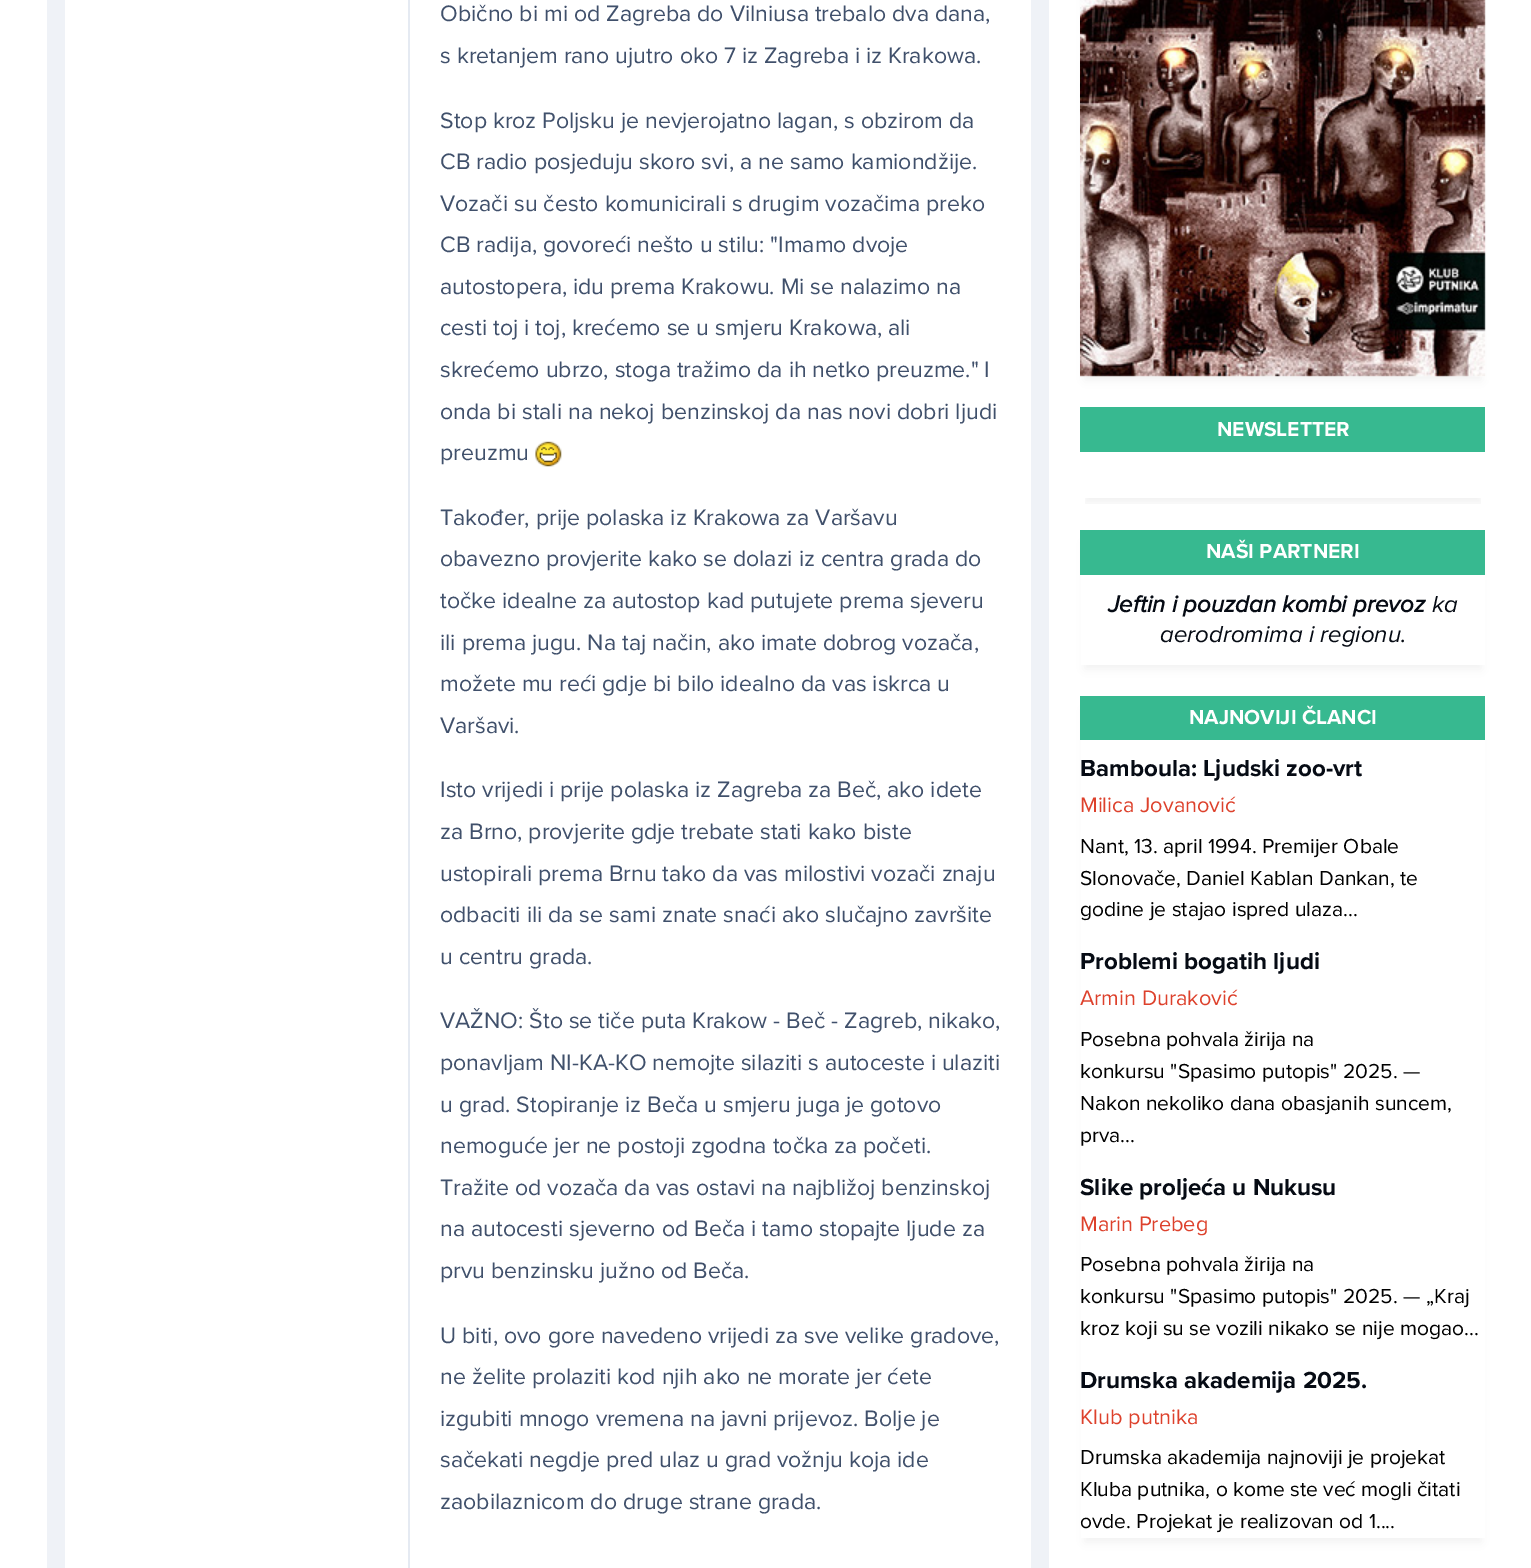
%!PS
<< /PageSize [1531 1568] /PageUsesTransparency true >> setpagedevice
/q/gsave load def
/Q_/grestore load def
/C { dup -16 bitshift 255 div exch dup -8 bitshift 255 and 255 div exch 255 and 255 div setrgbcolor } def
/F { [ exch dup neg 0 0 3 -1 roll 0 0 ] selectfont } def
/T { moveto show } def
/R { rectfill } def
/A { dup .setfillconstantalpha .setstrokeconstantalpha } def
/Q { 5 dict begin { /r /h /w /y /x } { exch def } forall
  x r add y moveto x w add y 2 copy h add r arct x w add y h add x 1 index r arct
  x y h add x y r arct x y 2 copy exch w add exch r arct closepath end } def
/S { 12 dict begin { /a /b /q /h /w /y /x } { exch def } forall gsave /was 0 def
  9 -2 -9 { dup b mul 4 div /e exch def 1 sub .425 mul 2.718 exch exp 1 add a .99 .min exch div /now exch def
    1 1 now sub 1 was sub div sub A /was now def
    w h .min e 2 mul add 0 gt { x e sub y e sub w e 2 mul add h e 2 mul add
      q e add b .6 mul add w h .min 2 div e add .min 0 .max Q fill } if } for grestore end } def
/I { 5 dict begin { /h /w /y /x /name } { exch def } forall
  gsave x y translate w h scale
  w h 8 [w 0 0 h 0 0] name (r) file false 3 colorimage grestore end } def
0 .pushpdf14devicefilter
0 1568 translate 1 -1 scale
4 setmiterlimit
16#FFFFFF C
0 0 1531 1568 R
16#EFF2F7 C
47 0 1002 1568 R
16#FFFFFF C
65 0 966 1568 R
16#E5EAF2 C
408 0 2 1568 R
/ProximaNova-Regular 23.1 F
16#40506B C
(Obično bi mi od Zagreba do Vilniusa trebalo dva dana,) 440 21 T
(s kretanjem rano ujutro oko 7 iz Zagreba i iz Krakowa.) 440 63 T
(Stop kroz Poljsku je nevjerojatno lagan, s obzirom da) 440 128 T
(CB radio posjeduju skoro svi, a ne samo kamiondžije.) 440 169 T
(Vozači su često komunicirali s drugim vozačima preko) 440 211 T
(CB radija, govoreći nešto u stilu: "Imamo dvoje) 440 252 T
(autostopera, idu prema Krakowu. Mi se nalazimo na) 440 294 T
(cesti toj i toj, krećemo se u smjeru Krakowa, ali) 440 335 T
(skrećemo ubrzo, stoga tražimo da ih netko preuzme." I) 440 377 T
(onda bi stali na nekoj benzinskoj da nas novi dobri ljudi) 440 419 T
(preuzmu) 440 460 T
(1.rgb) 535 441 27 26 I
(Također, prije polaska iz Krakowa za Varšavu) 440 525 T
(obavezno provjerite kako se dolazi iz centra grada do) 440 566 T
(točke idealne za autostop kad putujete prema sjeveru) 440 608 T
(ili prema jugu. Na taj način, ako imate dobrog vozača,) 440 650 T
(možete mu reći gdje bi bilo idealno da vas iskrca u) 440 691 T
(Varšavi.) 440 733 T
(Isto vrijedi i prije polaska iz Zagreba za Beč, ako idete) 440 797 T
(za Brno, provjerite gdje trebate stati kako biste) 440 839 T
(ustopirali prema Brnu tako da vas milostivi vozači znaju) 440 881 T
(odbaciti ili da se sami znate snaći ako slučajno završite) 440 922 T
(u centru grada.) 440 964 T
(VAŽNO: Što se tiče puta Krakow - Beč - Zagreb, nikako,) 440 1028 T
(ponavljam NI-KA-KO nemojte silaziti s autoceste i ulaziti) 440 1070 T
(u grad. Stopiranje iz Beča u smjeru juga je gotovo) 440 1112 T
(nemoguće jer ne postoji zgodna točka za početi.) 440 1153 T
(Tražite od vozača da vas ostavi na najbližoj benzinskoj) 440 1195 T
(na autocesti sjeverno od Beča i tamo stopajte ljude za) 440 1236 T
(prvu benzinsku južno od Beča.) 440 1278 T
(U biti, ovo gore navedeno vrijedi za sve velike gradove,) 440 1343 T
(ne želite prolaziti kod njih ako ne morate jer ćete) 440 1384 T
(izgubiti mnogo vremena na javni prijevoz. Bolje je) 440 1426 T
(sačekati negdje pred ulaz u grad vožnju koja ide) 440 1467 T
(zaobilaznicom do druge strane grada.) 440 1509 T
16#01030A C
1085 -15 396 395 0 5 .05 S
(2.rgb) 1080 0 406 377 I
q
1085 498 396 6 rectclip
1085 420 396 83 0 5 .05 S
Q_
16#37B990 C
1080 407 405 45 R
/ProximaNova-Bold 21 F
16#FFFFFF C
(NEWSLETTER) 1217 436 T
16#01030A C
1085 543 396 126 0 5 .05 S
16#FFFFFF C
1081 575 404 90 R
16#37B990 C
1080 530 405 45 R
16#FFFFFF C
(NAŠI PARTNERI) 1206 558 T
/ProximaNova-BoldItalic 24 F
16#060B14 C
(Jeftin i pouzdan kombi prevoz) 1108 612 T
/ProximaNova-Italic 24 F
(ka) 1432 612 T
(aerodromima i regionu.) 1160 642 T
16#01030A C
1085 710 396 832 0 5 .05 S
16#FFFFFF C
1081 740 404 798 R
16#37B990 C
1080 696 405 44 R
/ProximaNova-Bold 21 F
16#FFFFFF C
(NAJNOVIJI ČLANCI) 1189 724 T
/ProximaNova-Bold 24.1 F
16#060B14 C
(Bamboula: Ljudski zoo-vrt) 1080 776 T
/ProximaNova-Regular 21.75 F
16#DD412C C
(Milica Jovanović) 1080 812 T
/ProximaNova-Regular 21 F
16#000000 C
(Nant, 13. april 1994. Premijer Obale) 1080 853 T
(Slonovače, Daniel Kablan Dankan, te) 1080 885 T
(godine je stajao ispred ulaza...) 1080 916 T
/ProximaNova-Bold 24.1 F
16#060B14 C
(Problemi bogatih ljudi) 1080 969 T
/ProximaNova-Regular 21.75 F
16#DD412C C
(Armin Duraković) 1080 1005 T
/ProximaNova-Regular 21 F
16#000000 C
(Posebna pohvala žirija na) 1080 1046 T
(konkursu "Spasimo putopis" 2025. —) 1080 1078 T
(Nakon nekoliko dana obasjanih suncem,) 1080 1110 T
(prva...) 1080 1142 T
/ProximaNova-Bold 24.1 F
16#060B14 C
(Slike proljeća u Nukusu) 1080 1195 T
/ProximaNova-Regular 21.75 F
16#DD412C C
(Marin Prebeg) 1080 1231 T
/ProximaNova-Regular 21 F
16#000000 C
(Posebna pohvala žirija na) 1080 1271 T
(konkursu "Spasimo putopis" 2025. — „Kraj) 1080 1303 T
(kroz koji su se vozili nikako se nije mogao...) 1080 1335 T
/ProximaNova-Bold 24.1 F
16#060B14 C
(Drumska akademija 2025.) 1080 1388 T
/ProximaNova-Regular 21.75 F
16#DD412C C
(Klub putnika) 1080 1424 T
/ProximaNova-Regular 21 F
16#000000 C
(Drumska akademija najnoviji je projekat) 1080 1464 T
(Kluba putnika, o kome ste već mogli čitati) 1080 1496 T
(ovde. Projekat je realizovan od 1....) 1080 1528 T
.poppdf14devicefilter showpage
